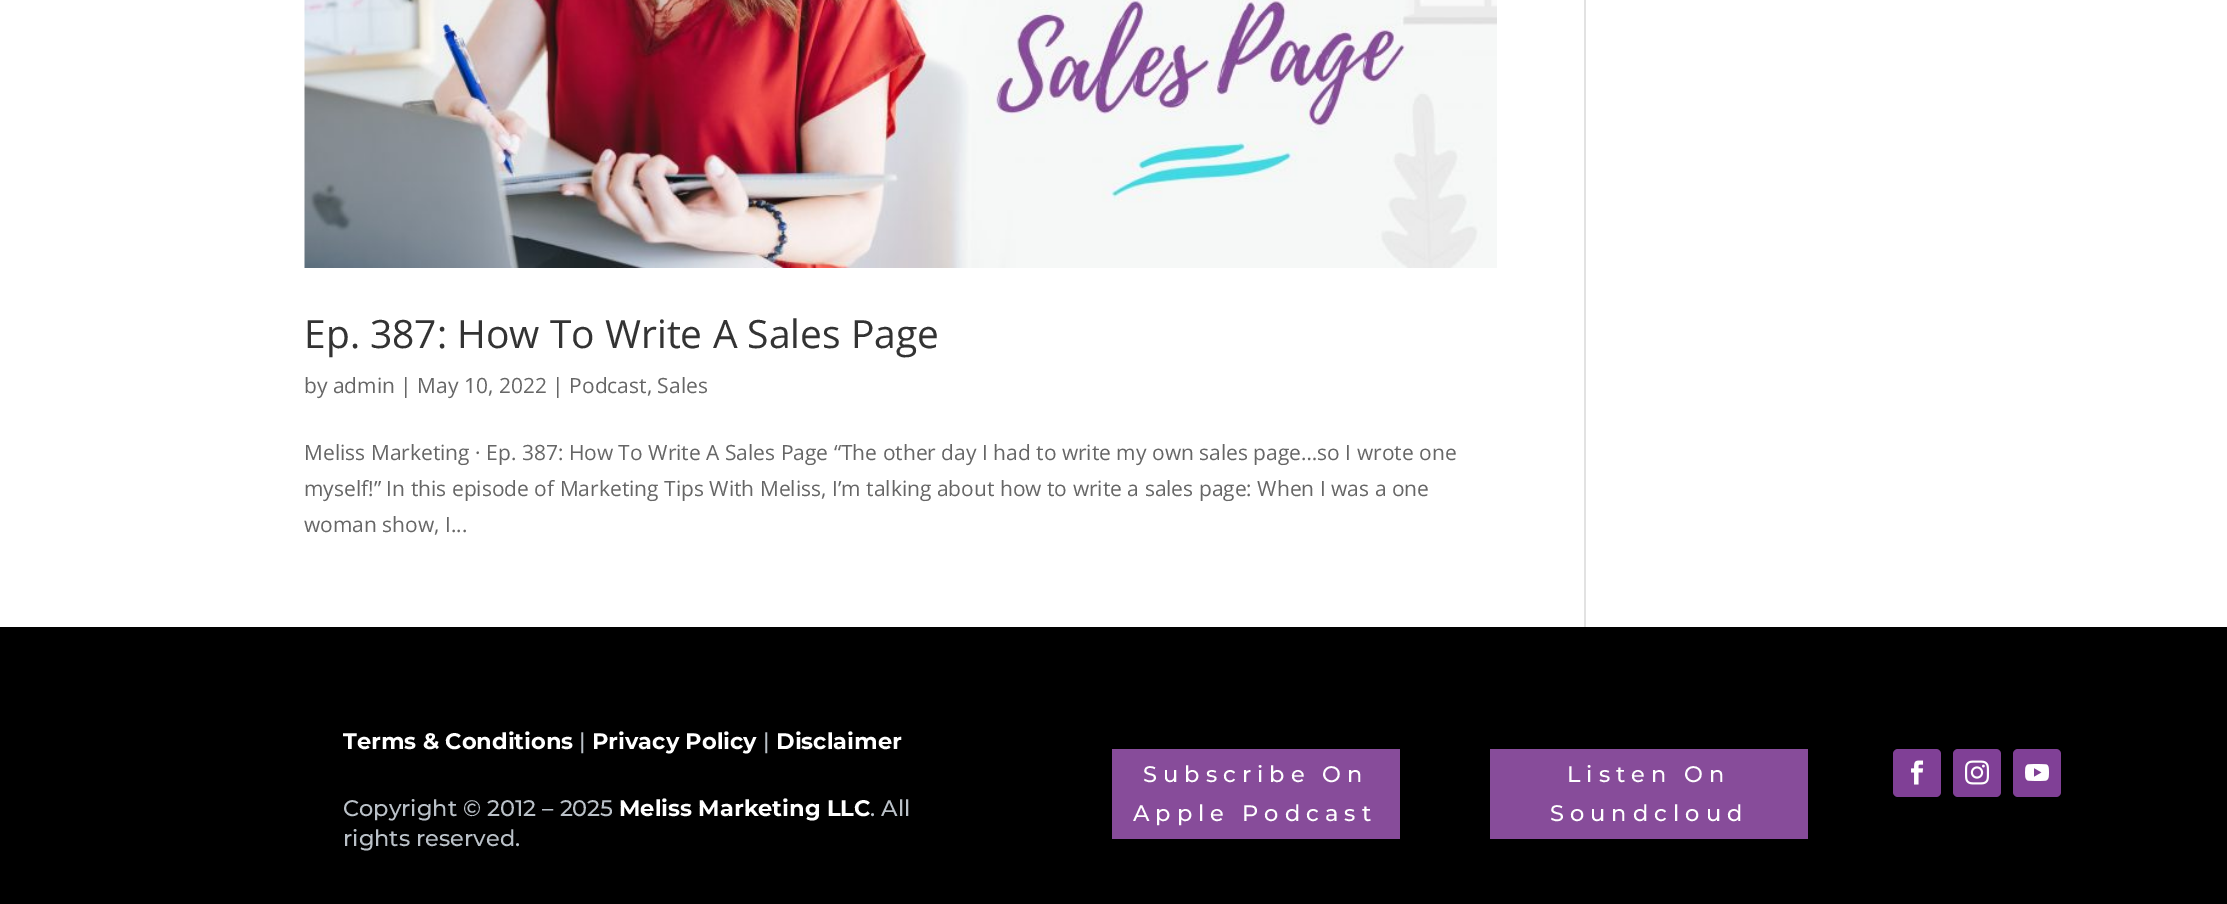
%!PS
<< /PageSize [2227 904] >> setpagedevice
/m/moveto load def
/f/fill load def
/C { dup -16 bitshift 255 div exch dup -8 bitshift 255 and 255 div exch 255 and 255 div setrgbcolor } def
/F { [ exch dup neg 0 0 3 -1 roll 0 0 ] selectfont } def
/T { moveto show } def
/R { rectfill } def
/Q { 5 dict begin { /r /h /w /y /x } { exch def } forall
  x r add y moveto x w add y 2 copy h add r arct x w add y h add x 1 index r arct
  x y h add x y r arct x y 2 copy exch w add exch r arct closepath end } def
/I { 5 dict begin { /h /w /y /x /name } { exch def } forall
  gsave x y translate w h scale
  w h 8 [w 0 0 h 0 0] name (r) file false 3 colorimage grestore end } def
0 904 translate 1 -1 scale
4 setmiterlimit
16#FFFFFF C
0 0 2227 904 R
(1.rgb) 304 0 1193 268 I
/OpenSans-Regular 39 F
16#333333 C
(Ep. 387: How To Write A Sales Page) 304 348 T
/OpenSans-Regular 21 F
16#666666 C
(by admin | May 10, 2022 | Podcast, Sales) 304 393 T
(Meliss Marketing · Ep. 387: How To Write A Sales Page “The other day I had to write my own sales page…so I wrote one) 304 460 T
(myself!” In this episode of Marketing Tips With Meliss, I’m talking about how to write a sales page: When I was a one) 304 496 T
(woman show, I...) 304 532 T
16#E2E2E2 C
1584 0 2 627 R
16#000000 C
0 627 2227 277 R
/Montserrat-Bold 22.5 F
16#FFFFFF C
(Terms & Conditions) 343 749 T
/Montserrat-Medium 22.5 F
16#BAC1C8 C
(|) 579 749 T
/Montserrat-Bold 22.5 F
16#FFFFFF C
(Privacy Policy) 592 749 T
/Montserrat-Medium 22.5 F
16#BAC1C8 C
(|) 763 749 T
/Montserrat-Bold 22.5 F
16#FFFFFF C
(Disclaimer) 776 749 T
/Montserrat-Medium 22.5 F
16#BAC1C8 C
(Copyright © 2012 – 2025) 343 816 T
/Montserrat-Bold 22.5 F
16#FFFFFF C
(Meliss Marketing LLC) 619 816 T
/Montserrat-Medium 22.5 F
16#BAC1C8 C
(. All) 870 816 T
(rights reserved.) 343 846 T
16#874C9A C
1112 749 288 90 R
16#FFFFFF C
1143 782 m 6 0 (Subscribe On) ashow
1133 821 m 6 0 (Apple Podcast) ashow
16#874C9A C
1490 749 318 90 R
16#FFFFFF C
1567 782 m 6 0 (Listen On) ashow
1550 821 m 6 0 (Soundcloud) ashow
16#804096 C
1893 749 48 48 5 Q f
(2.rgb) 1911 760 13 25 I
1953 749 48 48 5 Q f
(3.rgb) 1965 760 24 25 I
2013 749 48 48 5 Q f
(4.rgb) 2025 764 24 17 I
showpage
